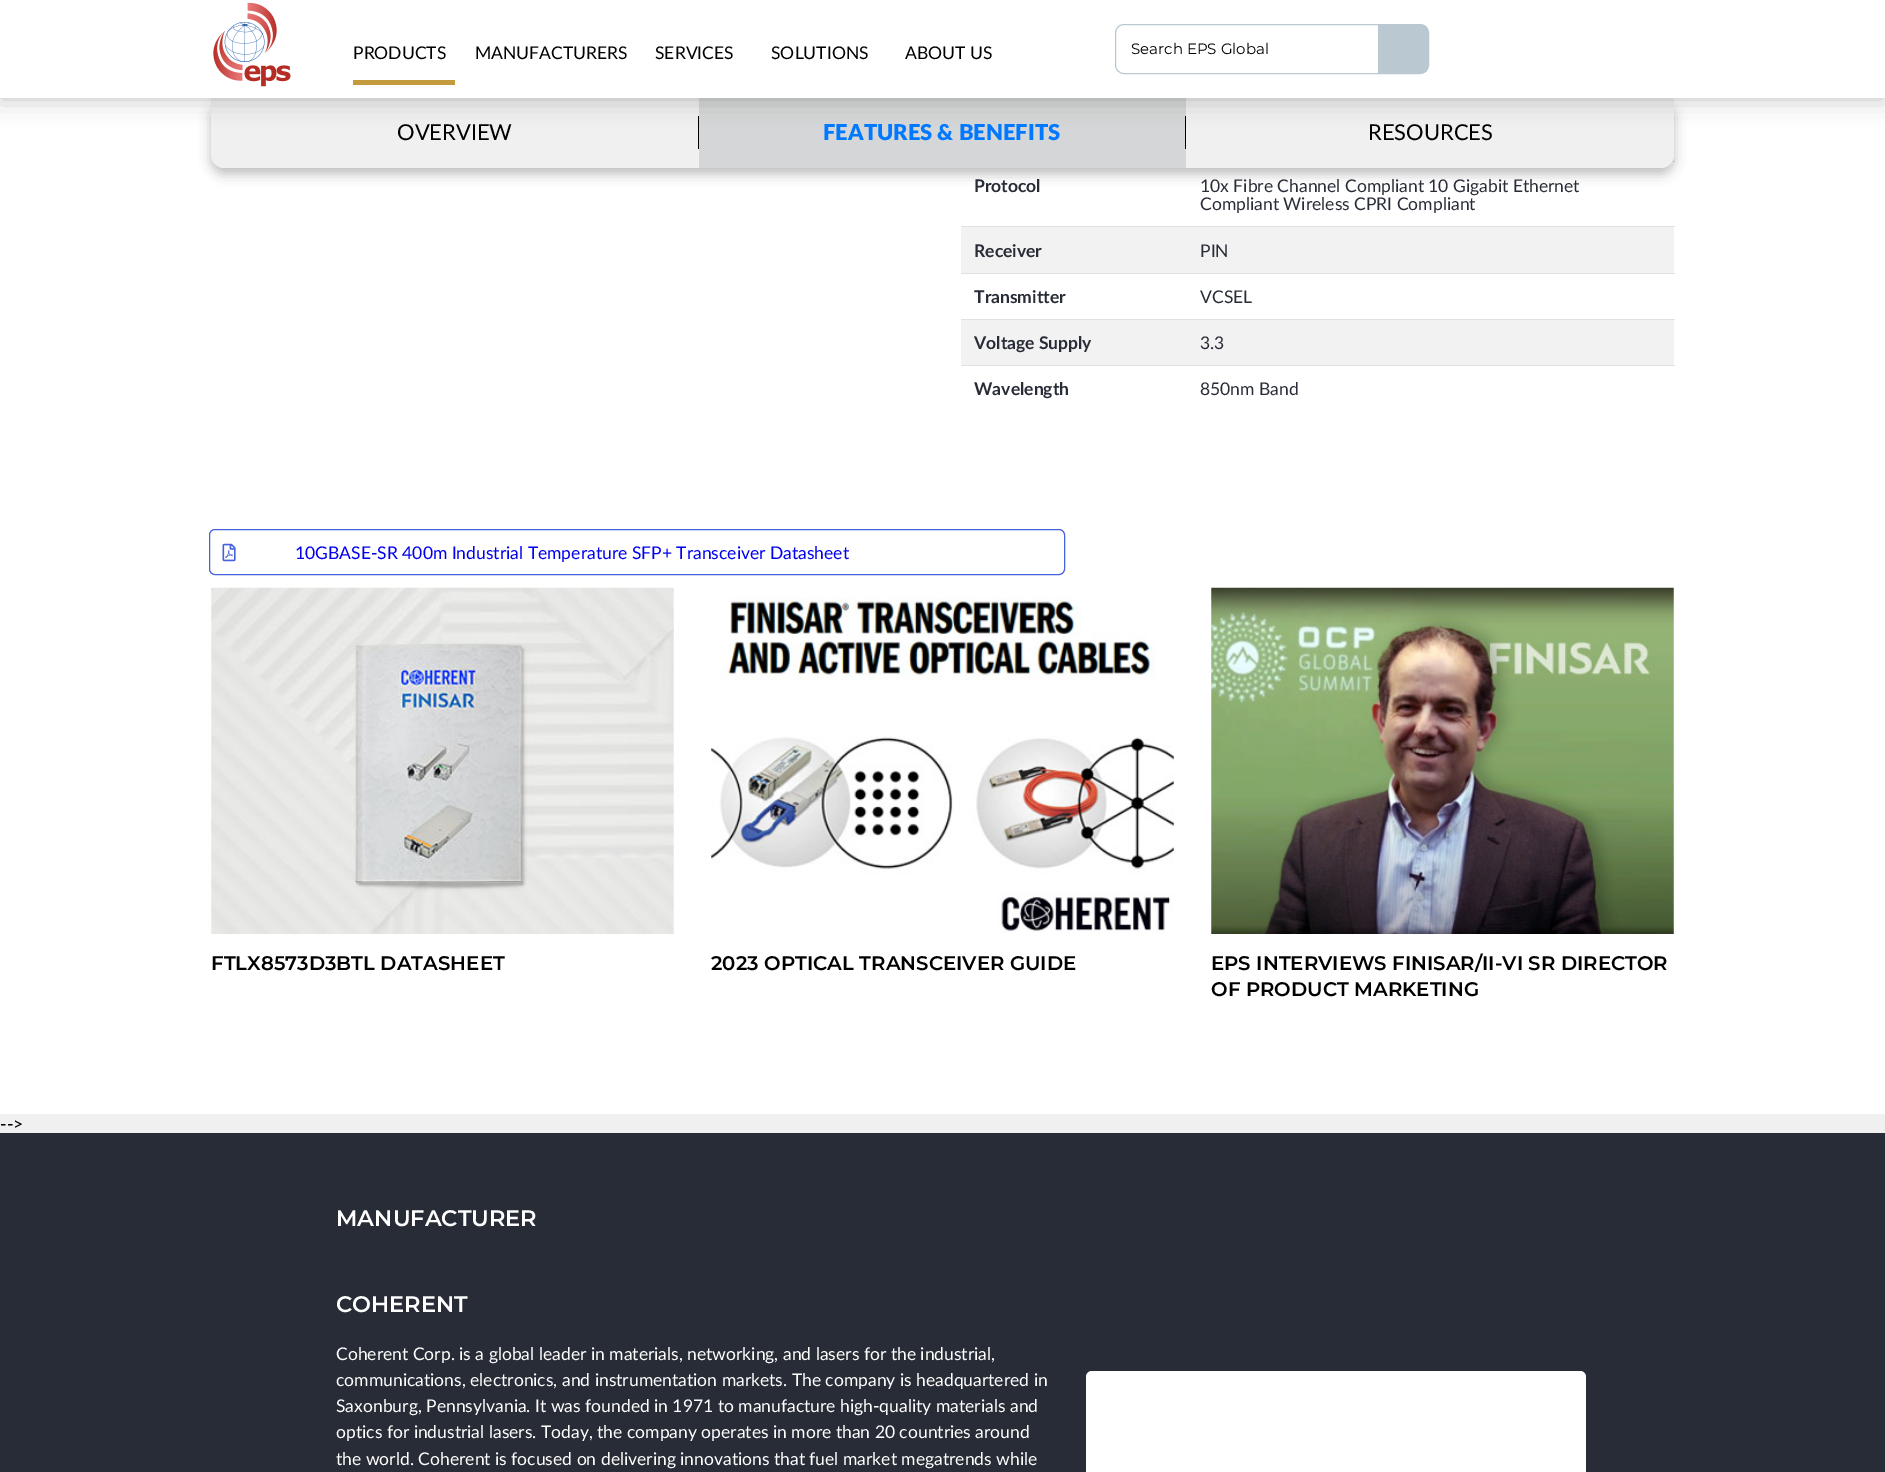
%!PS
<< /PageSize [1885 1472] /PageUsesTransparency true >> setpagedevice
/m/moveto load def
/l/rlineto load def
/c/rcurveto load def
/z/closepath load def
/f/fill load def
/s/stroke load def
/C { dup -16 bitshift 255 div exch dup -8 bitshift 255 and 255 div exch 255 and 255 div setrgbcolor } def
/F { [ exch dup neg 0 0 3 -1 roll 0 0 ] selectfont } def
/T { moveto show } def
/R { rectfill } def
/A { dup .setfillconstantalpha .setstrokeconstantalpha } def
/Q { 5 dict begin { /r /h /w /y /x } { exch def } forall
  x r add y moveto x w add y 2 copy h add r arct x w add y h add x 1 index r arct
  x y h add x y r arct x y 2 copy exch w add exch r arct closepath end } def
/S { 12 dict begin { /a /b /q /h /w /y /x } { exch def } forall gsave /was 0 def
  9 -2 -9 { dup b mul 4 div /e exch def 1 sub .425 mul 2.718 exch exp 1 add a .99 .min exch div /now exch def
    1 1 now sub 1 was sub div sub A /was now def
    w h .min e 2 mul add 0 gt { x e sub y e sub w e 2 mul add h e 2 mul add
      q e add b .6 mul add w h .min 2 div e add .min 0 .max Q fill } if } for grestore end } def
/I { 5 dict begin { /h /w /y /x /name } { exch def } forall
  gsave x y translate w h scale
  w h 8 [w 0 0 h 0 0] name (r) file false 3 colorimage grestore end } def
0 .pushpdf14devicefilter
0 1472 translate 1 -1 scale
4 setmiterlimit
16#F0F0F0 C
0 0 1885 1472 R
16#FFFFFF C
0 98 1885 1016 R
16#F2F2F2 C
1672 155 2 6 R
16#DEE2E6 C
1672 161 3 1 R
16#000000 C
211 104 1463 70 13 6 .25 S
16#F0F0F0 C
211 98 m 1463 0 l 0 57 l 0 7 -6 13 -13 13 c -1437 0 l -7 0 -13 -6 -13 -13 c z f
16#000000 C
698 116 1 33 R
16#D5D6D7 C
699 98 487 70 R
16#000000 C
1185 116 1 33 R
0 0 1885 98 0 12.5 .25 S
16#FFFFFF C
0 0 1885 98 R
(1.rgb) 213 2 78 85 I
16#C39B3C C
353 80 102 5 R
/Lato-Regular 17.5 F
16#000000 C
(PRODUCTS) 353 59 T
(MANUFACTURERS) 475 59 T
(SERVICES) 655 59 T
(SOLUTIONS) 771 59 T
(ABOUT US) 905 59 T
16#BAC9D1 C
1115.5 24.5 313 49 8.5 Q s
/Montserrat-Regular 15 F
16#000000 C
(Search EPS Global) 1131 54 T
16#BAC9D1 C
1378 25 m 44 0 l 3.5 0 6 2.5 6 6 c 0 36 l 0 3.5 -2.5 6 -6 6 c -44 0 l z f
/Lato-Regular 21.9 F
16#000000 C
(OVERVIEW) 397 140 T
/Lato-ExtraBold 21.9 F
16#0078FF C
(FEATURES & BENEFITS) 823 140 T
/Lato-Regular 21.9 F
16#000000 C
(RESOURCES) 1368 140 T
/Lato-Bold 17.5 F
16#282C36 C
(Protocol) 974 192 T
/Lato-Regular 17.5 F
(10x Fibre Channel Compliant 10 Gigabit Ethernet) 1200 192 T
(Compliant Wireless CPRI Compliant) 1200 210 T
16#F2F2F2 C
961 227 713 46 R
/Lato-Bold 17.5 F
16#282C36 C
(Receiver) 974 257 T
16#DEE2E6 C
961 226 714 1 R
/Lato-Regular 17.5 F
16#282C36 C
(PIN) 1200 257 T
/Lato-Bold 17.5 F
(Transmitter) 974 303 T
16#DEE2E6 C
961 273 714 1 R
/Lato-Regular 17.5 F
16#282C36 C
(VCSEL) 1200 303 T
16#F2F2F2 C
961 320 713 45 R
/Lato-Bold 17.5 F
16#282C36 C
(Voltage Supply) 974 349 T
16#DEE2E6 C
961 319 714 1 R
/Lato-Regular 17.5 F
16#282C36 C
(3.3) 1200 349 T
/Lato-Bold 17.5 F
(Wavelength) 974 395 T
16#DEE2E6 C
961 365 714 1 R
/Lato-Regular 17.5 F
16#282C36 C
(850nm Band) 1200 395 T
16#4662DC C
209.5 529.5 855 45 5.5 Q s
(2.rgb) 222 543 14 19 I
16#0000EE C
(10GBASE-SR 400m Industrial Temperature SFP+ Transceiver Datasheet) 295 559 T
(3.rgb) 211 587 463 347 I
/Montserrat-SemiBold 19.7 F
16#000000 C
(FTLX8573D3BTL DATASHEET) 211 970 T
(4.rgb) 711 597 463 337 I
(2023 OPTICAL TRANSCEIVER GUIDE) 711 970 T
(5.rgb) 1211 587 463 347 I
(EPS INTERVIEWS FINISAR/II-VI SR DIRECTOR) 1211 970 T
(OF PRODUCT MARKETING) 1211 996 T
/Lato-Regular 17.5 F
(-->) 0 1130 T
16#282C36 C
0 1133 1885 339 R
/Montserrat-SemiBold 22.5 F
16#FFFFFF C
(MANUFACTURER) 336 1226 T
(COHERENT) 336 1312 T
/Lato-Regular 17.5 F
(Coherent Corp. is a global leader in materials, networking, and lasers for the industrial,) 336 1360 T
(communications, electronics, and instrumentation markets. The company is headquartered in) 336 1386 T
(Saxonburg, Pennsylvania. It was founded in 1971 to manufacture high-quality materials and) 336 1412 T
(optics for industrial lasers. Today, the company operates in more than 20 countries around) 336 1438 T
(the world. Coherent is focused on delivering innovations that fuel market megatrends while) 336 1465 T
1086 1371 500 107 6 Q f
.poppdf14devicefilter showpage
